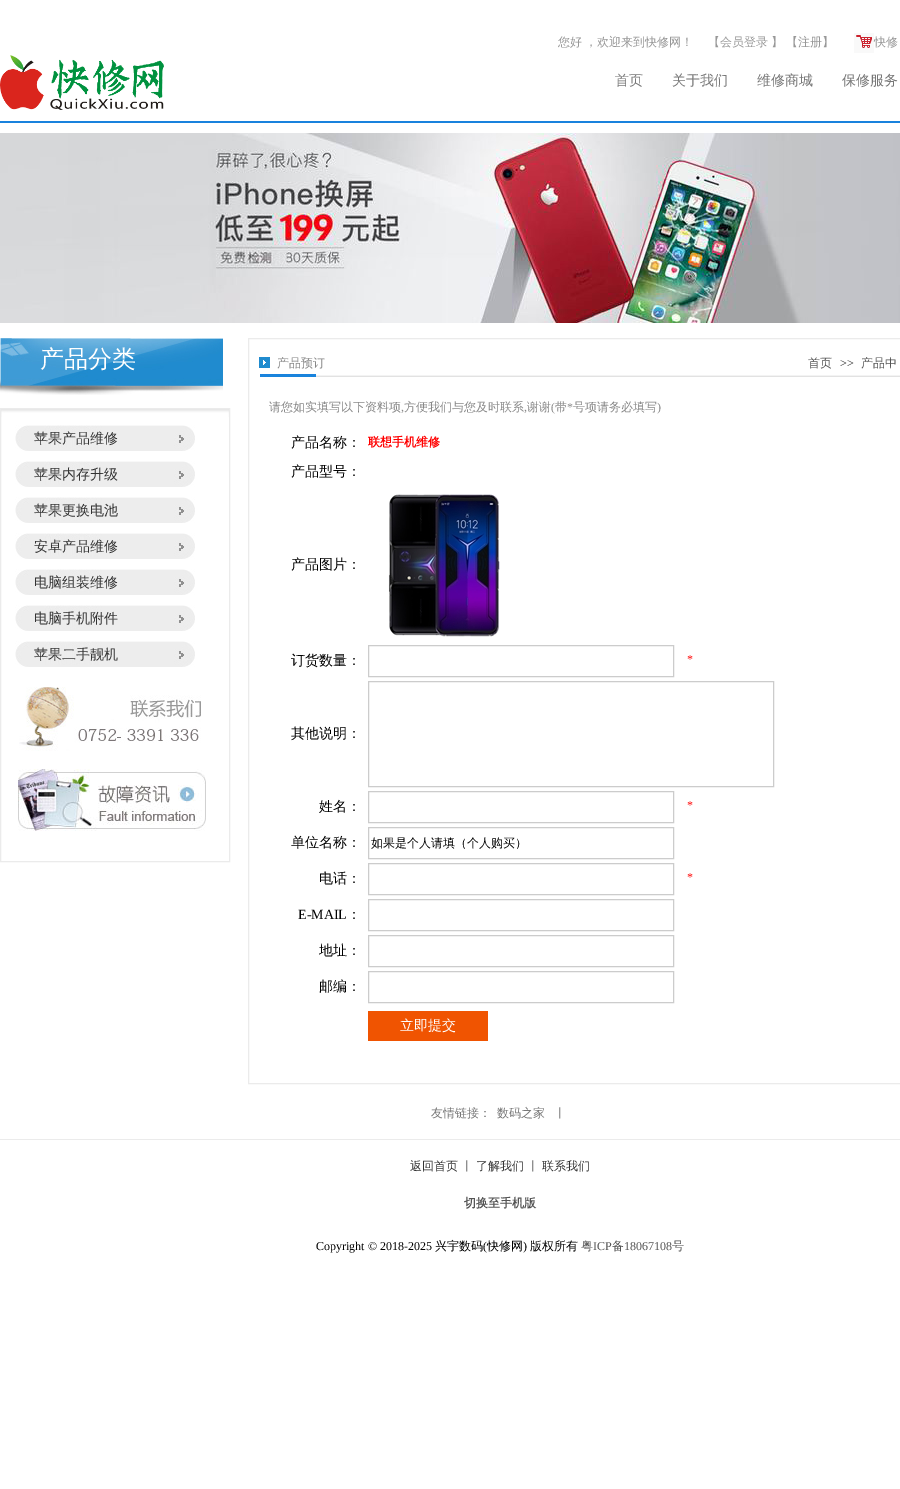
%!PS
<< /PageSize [900 1489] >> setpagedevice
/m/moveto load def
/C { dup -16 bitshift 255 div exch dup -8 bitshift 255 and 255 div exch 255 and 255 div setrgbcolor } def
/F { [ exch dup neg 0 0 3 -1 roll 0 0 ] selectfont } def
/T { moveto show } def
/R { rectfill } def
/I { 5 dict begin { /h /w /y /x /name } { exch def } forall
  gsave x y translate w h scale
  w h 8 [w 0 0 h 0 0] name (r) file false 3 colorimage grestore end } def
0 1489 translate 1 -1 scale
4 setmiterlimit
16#FFFFFF C
0 0 900 1489 R
/WenQuanYiZenHei-Medium 12 F
16#989898 C
558 46 m -1 0 32 (您好 ，欢迎来到快修网！) widthshow
(【会员登录) 708 46 T
(】) 771 46 T
(【注册】) 786 46 T
(1.rgb) 854 33 20 20 I
(快修) 874 46 T
16#1982DD C
0 121 900 2 R
(2.rgb) 0 55 164 55 I
/WenQuanYiZenHei-Medium 14 F
16#777777 C
(首页) 615 85 T
(关于我们) 672 85 T
(维修商城) 757 85 T
(保修服务) 842 85 T
(3.rgb) 0 133 900 190 I
(4.rgb) 0 338 223 57 I
/WenQuanYiZenHei-Medium 24 F
16#FFFFFF C
(产品分类) 40 367 T
(5.rgb) 1 409 228 8 I
16#EBEBEB C
.5 408.5 229 453 rectstroke
(6.rgb) 15 425 180 26 I
/WenQuanYiZenHei-Medium 14 F
16#343434 C
(苹果产品维修) 34 443 T
(6.rgb) 15 461 180 26 I
(苹果内存升级) 34 479 T
(6.rgb) 15 497 180 26 I
(苹果更换电池) 34 515 T
(6.rgb) 15 533 180 26 I
(安卓产品维修) 34 551 T
(6.rgb) 15 569 180 26 I
(电脑组装维修) 34 587 T
(6.rgb) 15 605 180 26 I
(电脑手机附件) 34 623 T
(6.rgb) 15 641 180 26 I
(苹果二手靓机) 34 659 T
(7.rgb) 19 687 182 64 I
(8.rgb) 18 769 188 62 I
16#EBEBEB C
248.5 338.5 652 745 rectstroke
(9.rgb) 260 374 640 3 I
(10.rgb) 259 357 11 11 I
/WenQuanYiZenHei-Medium 12 F
16#888888 C
(产品预订) 277 367 T
16#555555 C
(首页) 808 367 T
/LiberationSerif-Regular 12 F
16#343434 C
(>>) 840 367 T
/WenQuanYiZenHei-Medium 12 F
16#555555 C
(产品中) 861 367 T
16#888888 C
(请您如实填写以下资料项) 269 411 T
(方便我们与您及时联系) 404 411 T
(谢谢) 527 411 T
/LiberationSerif-Regular 12 F
(\() 551 411 T
/WenQuanYiZenHei-Medium 12 F
(带) 555 411 T
/LiberationSerif-Regular 12 F
(*) 567 411 T
/WenQuanYiZenHei-Medium 12 F
(号项请务必填写) 573 411 T
/LiberationSerif-Regular 12 F
(\)) 657 411 T
(,) 401 411 T
(,) 524 411 T
/WenQuanYiZenHei-Medium 14 F
16#000000 C
(产品名称：) 291 447 T
/WenQuanYiZenHei-Bold 12 F
16#FF0000 C
(联想手机维修) 368 446 T
/WenQuanYiZenHei-Medium 14 F
16#000000 C
(产品型号：) 291 476 T
(产品图片：) 291 569 T
(11.rgb) 388 494 112 143 I
(订货数量：) 291 665 T
16#CCCCCC C
368.5 645.5 305 31 rectstroke
/LiberationSerif-Regular 12 F
16#FF0000 C
(*) 687 663 T
/WenQuanYiZenHei-Medium 14 F
16#000000 C
(其他说明：) 291 738 T
16#CCCCCC C
368.5 681.5 405 105 rectstroke
16#000000 C
(姓名：) 319 811 T
16#CCCCCC C
368.5 791.5 305 31 rectstroke
/LiberationSerif-Regular 12 F
16#FF0000 C
(*) 687 809 T
/WenQuanYiZenHei-Medium 14 F
16#000000 C
(单位名称：) 291 847 T
16#CCCCCC C
368.5 827.5 305 31 rectstroke
/WenQuanYiZenHei-Medium 12 F
16#000000 C
(如果是个人请填（个人购买）) 371 847 T
/WenQuanYiZenHei-Medium 14 F
(电话：) 319 883 T
16#CCCCCC C
368.5 863.5 305 31 rectstroke
/LiberationSerif-Regular 12 F
16#FF0000 C
(*) 687 881 T
/LiberationSerif-Regular 14 F
16#000000 C
(E-MAIL) 298 919 T
/WenQuanYiZenHei-Medium 14 F
(：) 347 919 T
16#CCCCCC C
368.5 899.5 305 31 rectstroke
16#000000 C
(地址：) 319 955 T
16#CCCCCC C
368.5 935.5 305 31 rectstroke
16#000000 C
(邮编：) 319 991 T
16#CCCCCC C
368.5 971.5 305 31 rectstroke
16#F05401 C
368 1011 120 30 R
16#FFFFFF C
(立即提交) 400 1030 T
16#EBEBEB C
0 1139 900 1 R
/WenQuanYiZenHei-Medium 12 F
16#777777 C
(友情链接：) 431 1117 T
(数码之家) 497 1117 T
(丨) 554 1117 T
16#343434 C
(返回首页) 410 1170 T
16#666666 C
(丨) 461 1170 T
16#343434 C
(了解我们) 476 1170 T
16#666666 C
(丨) 527 1170 T
16#343434 C
(联系我们) 542 1170 T
/WenQuanYiZenHei-Bold 12 F
16#555555 C
(切换至手机版) 464 1207 T
/LiberationSerif-Regular 12 F
16#000000 C
(Copyright © 2018-2025) 316 1250 T
/WenQuanYiZenHei-Medium 12 F
(兴宇数码) 435 1250 T
/LiberationSerif-Regular 12 F
(\() 483 1250 T
/WenQuanYiZenHei-Medium 12 F
(快修网) 487 1250 T
/LiberationSerif-Regular 12 F
(\)) 523 1250 T
/WenQuanYiZenHei-Medium 12 F
(版权所有) 530 1250 T
16#555555 C
(粤) 581 1250 T
/LiberationSerif-Regular 12 F
(ICP) 593 1250 T
/WenQuanYiZenHei-Medium 12 F
(备) 612 1250 T
/LiberationSerif-Regular 12 F
(18067108) 624 1250 T
/WenQuanYiZenHei-Medium 12 F
(号) 672 1250 T
showpage
